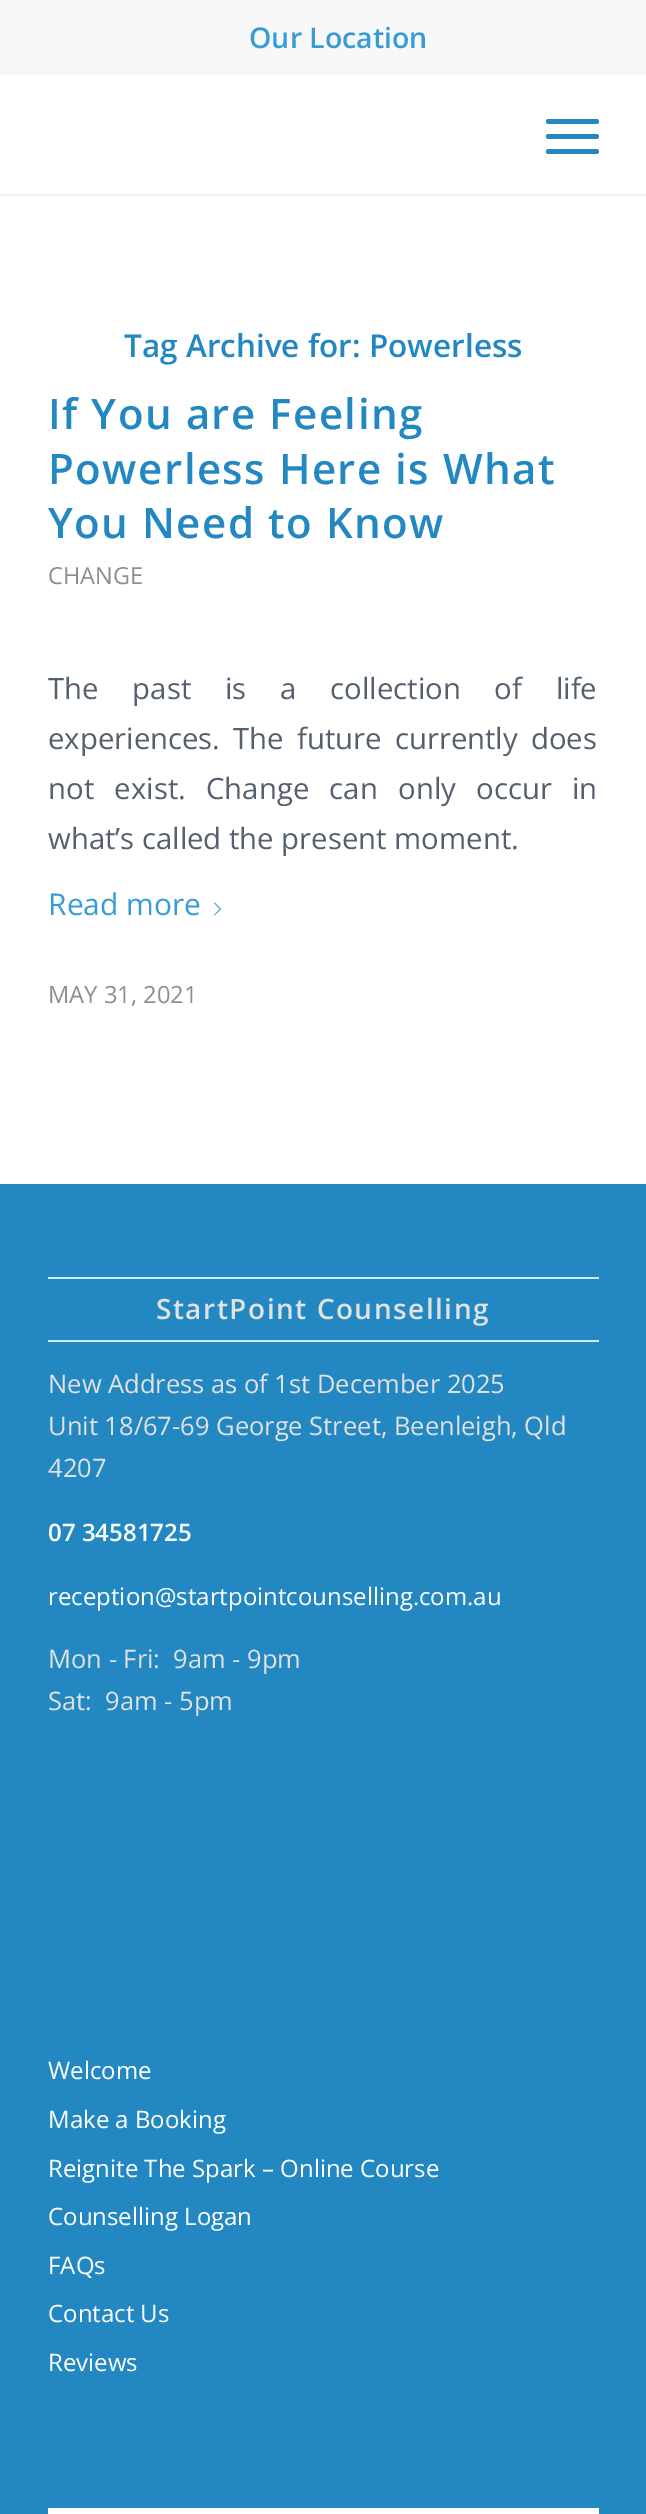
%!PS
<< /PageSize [646 2514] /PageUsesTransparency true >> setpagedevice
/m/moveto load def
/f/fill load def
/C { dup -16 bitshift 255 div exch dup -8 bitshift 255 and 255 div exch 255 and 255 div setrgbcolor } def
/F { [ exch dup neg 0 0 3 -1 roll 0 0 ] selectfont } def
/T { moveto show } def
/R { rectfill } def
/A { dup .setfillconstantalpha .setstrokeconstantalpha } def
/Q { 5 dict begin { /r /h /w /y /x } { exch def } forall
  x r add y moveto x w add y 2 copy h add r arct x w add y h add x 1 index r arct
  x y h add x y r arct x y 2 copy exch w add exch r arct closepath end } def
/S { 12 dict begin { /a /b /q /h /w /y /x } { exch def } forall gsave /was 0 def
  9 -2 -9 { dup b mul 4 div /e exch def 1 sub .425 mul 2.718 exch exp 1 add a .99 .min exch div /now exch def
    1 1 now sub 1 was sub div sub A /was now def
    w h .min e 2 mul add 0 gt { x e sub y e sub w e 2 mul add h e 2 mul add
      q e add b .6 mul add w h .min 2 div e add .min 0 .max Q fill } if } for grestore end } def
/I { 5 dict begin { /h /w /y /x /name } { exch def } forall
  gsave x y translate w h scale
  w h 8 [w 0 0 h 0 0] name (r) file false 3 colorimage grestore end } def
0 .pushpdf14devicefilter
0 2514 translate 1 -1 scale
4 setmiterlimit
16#FFFFFF C
0 0 646 2514 R
16#000000 C
-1 -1 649 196 0 1.5 .1 S
16#F8F8F8 C
0 0 646 75 R
/OpenSans-SemiBold 28.5 F
16#379CD6 C
(Our Location) 249 48 T
16#FFFFFF C
0 75 646 119 R
16#2388C2 C
546 134 53 5 2.5 Q f
546 119 53 5 2.5 Q f
546 149 53 5 2.5 Q f
/OpenSans-SemiBold 31.5 F
(Tag Archive for: Powerless) 124 357 T
/OpenSans-SemiBold 42 F
48 429 m 1.5 0 (If You are Feeling) ashow
48 484 m 1.5 0 (Powerless Here is What) ashow
48 538 m 1.5 0 (You Need to Know) ashow
/OpenSans-Regular 23.5 F
16#889095 C
(CHANGE) 48 584 T
/OpenSans-Regular 29.3 F
16#55606E C
48 699 m 26.25 0 32 (The past is a collection of life) widthshow
48 749 m 5.5 0 32 (experiences. The future currently does) widthshow
48 799 m 12.75 0 32 (not exist. Change can only occur in) widthshow
(what’s called the present moment.) 48 849 T
/OpenSans-Regular 30 F
16#379CD6 C
(Read more) 48 915 T
(1.rgb) 214 902 7 14 I
/OpenSans-Regular 23.75 F
16#889095 C
(MAY 31, 2021) 48 1003 T
16#2388C2 C
0 1184 646 1330 R
16#C7EBFF C
48 1277 551 2 R
48 1340 551 2 R
/OpenSans-SemiBold 28 F
16#E1E1E1 C
156 1319 m 1.5 0 (StartPoint Counselling) ashow
/OpenSans-Regular 25.5 F
(New Address as of 1st December 2025) 48 1393 T
(Unit 18/67-69 George Street, Beenleigh, Qld) 48 1435 T
(4207) 48 1477 T
/OpenSans-SemiBold 24 F
16#FFFFFF C
(07 34581725) 48 1541 T
/OpenSans-Regular 24 F
(reception@startpointcounselling.com.au) 48 1605 T
/OpenSans-Regular 25.5 F
16#E1E1E1 C
(Mon - Fri:  9am - 9pm) 48 1668 T
(Sat:  9am - 5pm) 48 1710 T
/OpenSans-Regular 24 F
16#FFFFFF C
(Welcome) 48 2079 T
(Make a Booking) 48 2128 T
(Reignite The Spark – Online Course) 48 2177 T
(Counselling Logan) 48 2225 T
(FAQs) 48 2274 T
(Contact Us) 48 2322 T
(Reviews) 48 2371 T
48 2508 551 6 R
.poppdf14devicefilter showpage
